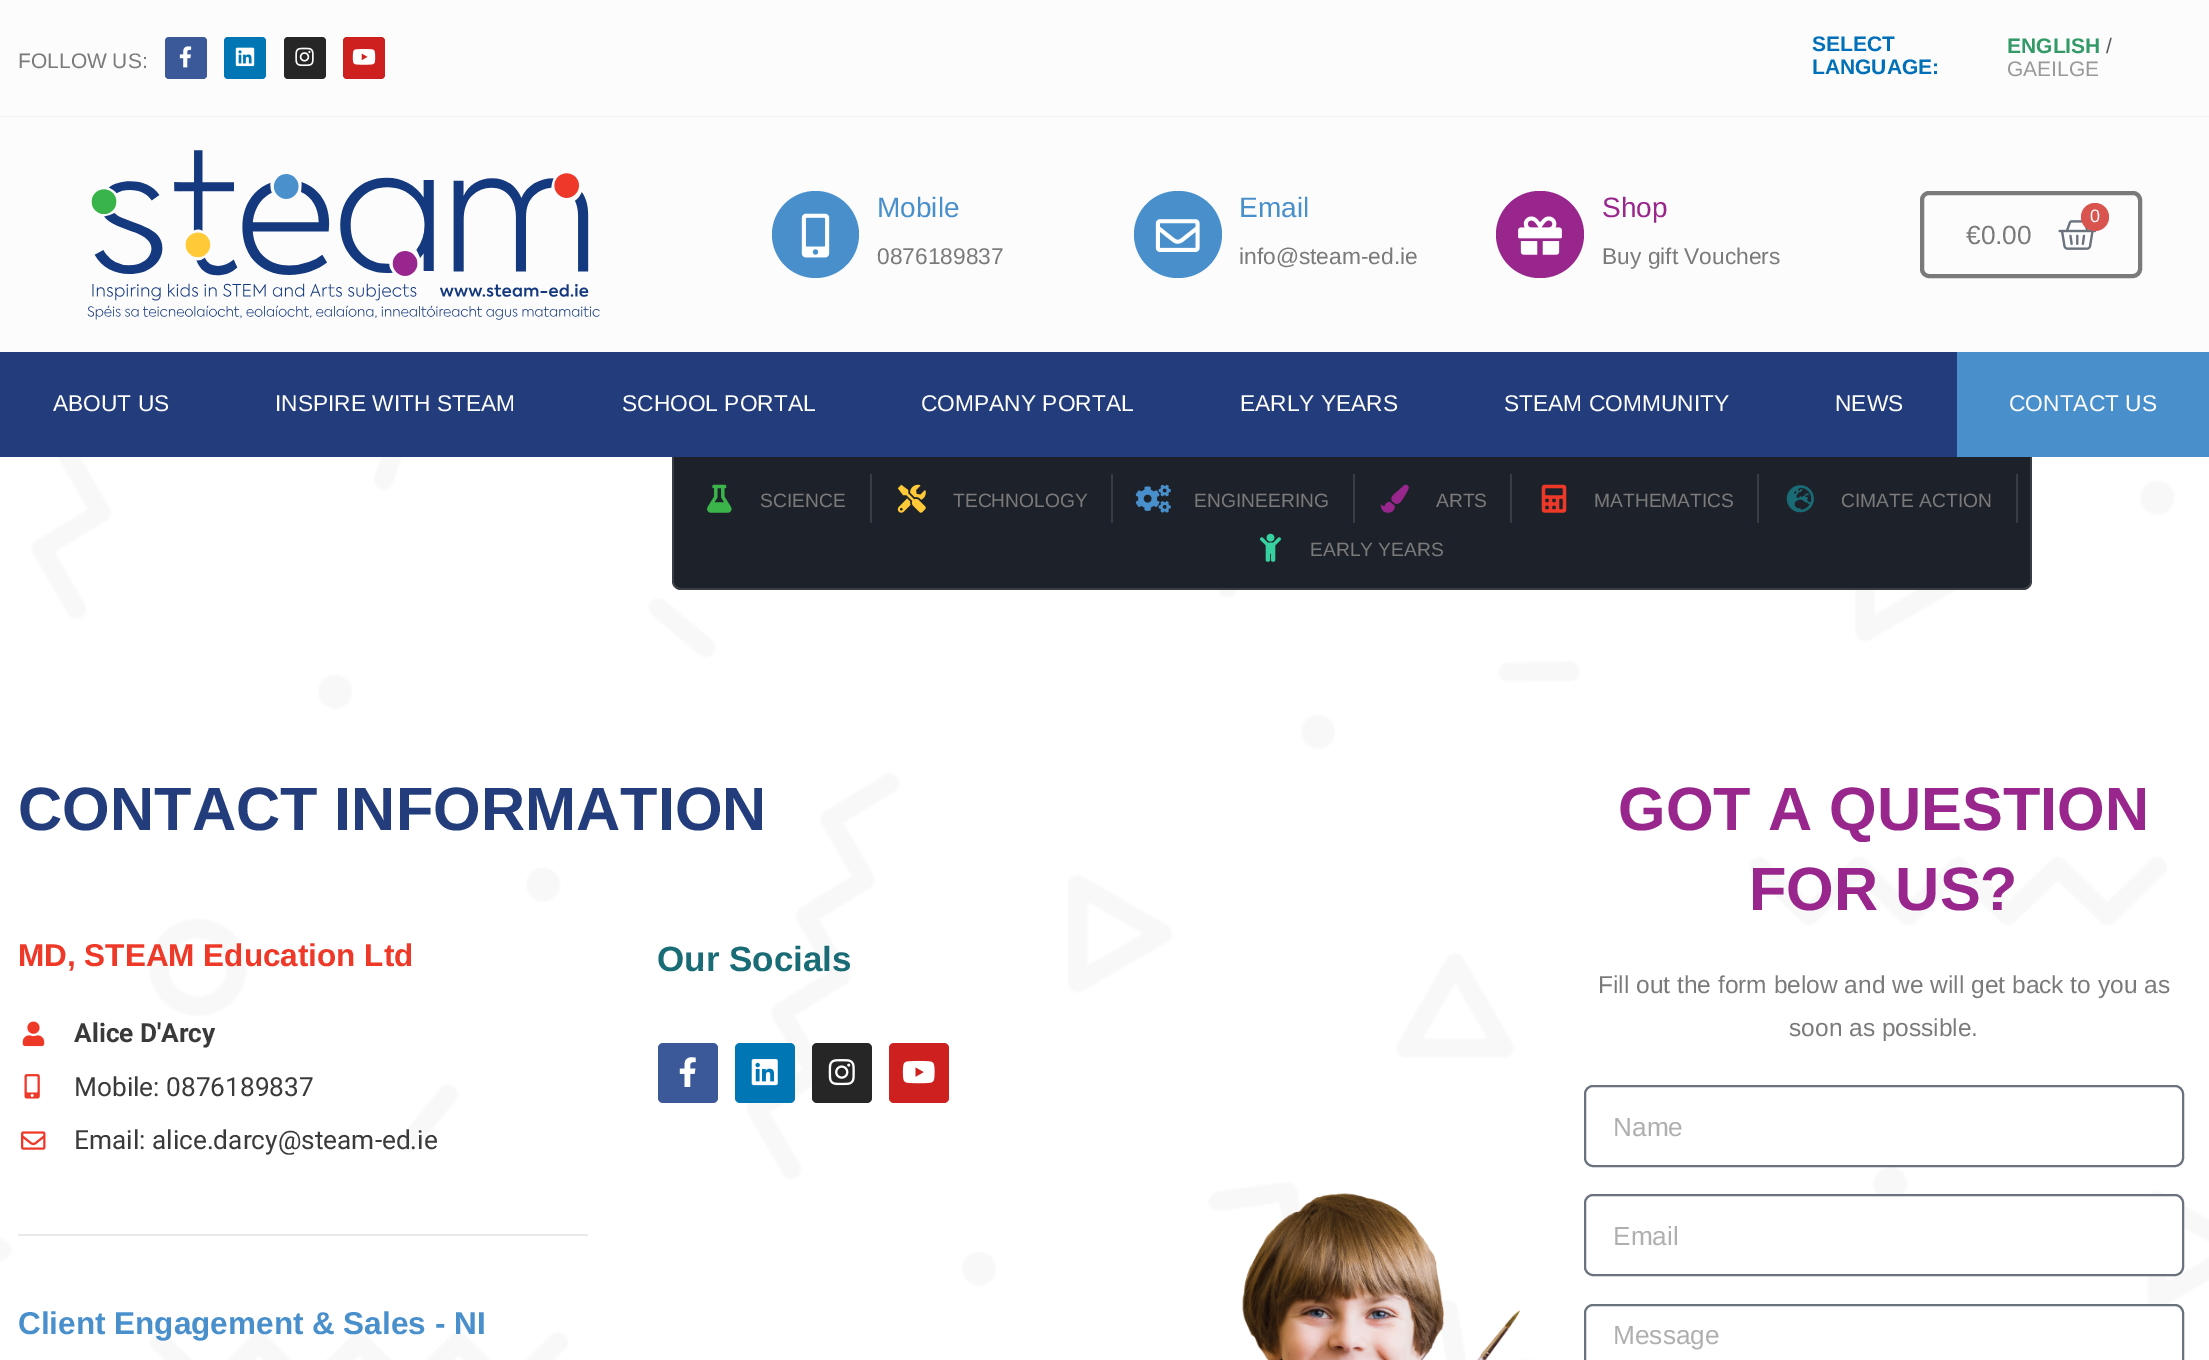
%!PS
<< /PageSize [2209 1360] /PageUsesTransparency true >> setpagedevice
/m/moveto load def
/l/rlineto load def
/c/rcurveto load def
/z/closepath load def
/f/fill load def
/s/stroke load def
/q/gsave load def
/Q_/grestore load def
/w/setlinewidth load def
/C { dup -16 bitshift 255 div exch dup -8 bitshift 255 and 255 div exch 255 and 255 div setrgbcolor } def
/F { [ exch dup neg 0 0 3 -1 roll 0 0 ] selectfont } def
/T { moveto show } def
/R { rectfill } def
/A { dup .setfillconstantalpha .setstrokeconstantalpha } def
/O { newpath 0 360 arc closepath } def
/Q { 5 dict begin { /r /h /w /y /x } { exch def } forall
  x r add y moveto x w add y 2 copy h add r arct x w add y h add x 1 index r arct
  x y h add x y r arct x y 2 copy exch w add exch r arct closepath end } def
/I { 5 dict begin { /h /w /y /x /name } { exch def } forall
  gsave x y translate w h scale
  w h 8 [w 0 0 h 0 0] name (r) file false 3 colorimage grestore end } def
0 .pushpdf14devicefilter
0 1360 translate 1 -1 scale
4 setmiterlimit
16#FCFCFC C
0 0 2209 1360 R
16#F0F0F0 C
0 116 2209 1 R
/LiberationSans-Regular 21 F
16#7A7A7A C
(FOLLOW US:) 18 68 T
16#3B5998 C
165 37 42 42 4 Q f
(1.rgb) 179 46 13 22 I
16#0077B5 C
224 37 42 42 4 Q f
(2.rgb) 235 47 20 20 I
16#262626 C
284 37 42 42 4 Q f
(3.rgb) 295 47 19 20 I
16#CD201F C
343 37 42 42 4 Q f
(4.rgb) 352 49 24 16 I
/LiberationSans-Bold 21 F
16#0170B9 C
(SELECT) 1812 51 T
(LANGUAGE:) 1812 74 T
16#339966 C
(ENGLISH) 2007 53 T
/LiberationSans-Regular 21 F
16#54595F C
(/) 2106 53 T
16#999999 C
(GAEILGE) 2007 76 T
(5.rgb) 87 150 513 170 I
16#488FCC C
815.5 234.5 43.5 O f
(6.rgb) 801 213 29 45 I
/LiberationSans-Regular 28 F
(Mobile) 877 217 T
/LiberationSans-Regular 22.75 F
16#7A7A7A C
(0876189837) 877 264 T
16#488FCC C
1134 191 88 87 43.5 Q f
(7.rgb) 1155 219 45 33 I
/LiberationSans-Regular 28 F
(Email) 1239 217 T
/LiberationSans-Regular 22.75 F
16#7A7A7A C
(info@steam-ed.ie) 1239 264 T
16#98268C C
1496 191 88 87 43.5 Q f
(8.rgb) 1518 216 44 39 I
/LiberationSans-Regular 28 F
(Shop) 1602 217 T
/LiberationSans-Regular 22.75 F
16#7A7A7A C
(Buy gift Vouchers) 1602 264 T
4 w
1922 193 218 83 7 Q s
(9.rgb) 2058 220 39 30 I
16#D9534F C
2095 217 14 O f
/LiberationSans-Regular 18 F
16#FFFFFF C
(0) 2090 222 T
/LiberationSans-Regular 26.25 F
16#7A7A7A C
(€0.00) 1966 244 T
16#233D7C C
0 352 1957 105 R
/LiberationSans-Regular 22.75 F
16#FFFFFF C
(ABOUT US) 53 411 T
(INSPIRE WITH STEAM) 275 411 T
(SCHOOL PORTAL) 622 411 T
(COMPANY PORTAL) 921 411 T
(EARLY YEARS) 1240 411 T
(STEAM COMMUNITY) 1504 411 T
(NEWS) 1835 411 T
16#488FCC C
1957 352 252 105 R
16#FFFFFF C
(CONTACT US) 2009 411 T
0 457 2209 903 R
(17.rgb) 0 457 2209 903 I
16#1D222A C
672 457 m 1360 0 l 0 124 l 0 5 -4 9 -9 9 c -1342 0 l -5 0 -9 -4 -9 -9 c z f
0.13 A
16#F0F0F0 C
672 457 m 1360 0 l 0 124 l 0 5 -4 9 -9 9 c -1342 0 l -5 0 -9 -4 -9 -9 c z 674 457 m 1356 0 l 0 124 l 0 4 -3 7 -7 7 c -1342 0 l -4 0 -7 -3 -7 -7 c z eofill
1 A
(10.rgb) 707 484 25 29 I
/LiberationSans-Regular 19.25 F
16#7A7A7A C
(SCIENCE) 760 507 T
16#383D44 C
870 474 2 49 R
(11.rgb) 897 484 29 29 I
16#7A7A7A C
(TECHNOLOGY) 953 507 T
16#383D44 C
1111 474 2 49 R
(12.rgb) 1135 484 36 29 I
16#7A7A7A C
(ENGINEERING) 1194 507 T
16#383D44 C
1353 474 2 49 R
(13.rgb) 1380 484 29 29 I
16#7A7A7A C
(ARTS) 1436 507 T
16#383D44 C
1510 474 2 49 R
(14.rgb) 1541 484 26 29 I
16#7A7A7A C
(MATHEMATICS) 1594 507 T
16#383D44 C
1757 474 2 49 R
(15.rgb) 1786 485 28 28 I
16#7A7A7A C
(CIMATE ACTION) 1841 507 T
16#383D44 C
2016 474 2 49 R
(16.rgb) 1260 533 21 29 I
16#7A7A7A C
(EARLY YEARS) 1310 556 T
/LiberationSans-Bold 61.25 F
16#233D7C C
(CONTACT INFORMATION) 18 830 T
/LiberationSans-Bold 31.5 F
16#EE3929 C
(MD, STEAM Education Ltd) 18 966 T
(18.rgb) 22 1021 23 26 I
/Roboto-Bold 26.25 F
16#3A3A3A C
(Alice D'Arcy) 74 1042 T
(19.rgb) 24 1074 16 25 I
/Roboto-Regular 26.25 F
(Mobile: 0876189837) 74 1096 T
(20.rgb) 21 1131 25 19 I
(Email: alice.darcy@steam-ed.ie) 74 1149 T
16#EAEAEA C
18 1234 570 2 R
/LiberationSans-Bold 31.5 F
16#488FCC C
(Client Engagement & Sales - NI) 18 1334 T
/LiberationSans-Bold 35 F
16#196C76 C
(Our Socials) 657 971 T
16#3B5998 C
658 1043 60 60 5 Q f
(21.rgb) 679 1057 17 30 I
16#0077B5 C
735 1043 60 60 5 Q f
(22.rgb) 751 1059 27 27 I
16#262626 C
812 1043 60 60 5 Q f
(23.rgb) 828 1059 27 27 I
16#CD201F C
889 1043 60 60 5 Q f
(24.rgb) 902 1060 33 24 I
(25.rgb) 1242 1193 279 167 I
/LiberationSans-Bold 61.25 F
16#98268C C
(GOT A QUESTION) 1618 830 T
(FOR US?) 1749 910 T
/LiberationSans-Regular 24.5 F
16#7A7A7A C
(Fill out the form below and we will get back to you as) 1598 993 T
(soon as possible.) 1789 1036 T
16#69727D C
2 w
1585 1086 598 80 8 Q s
/LiberationSans-Regular 26.25 F
16#AFAFAF C
(Name) 1613 1136 T
16#FFFFFF C
1585 1195 598 80 8 Q q f Q_
16#69727D C
s
16#AFAFAF C
(Email) 1613 1245 T
16#FFFFFF C
1585 1305 598 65 8 Q q f Q_
16#69727D C
s
16#AFAFAF C
(Message) 1613 1344 T
.poppdf14devicefilter showpage
